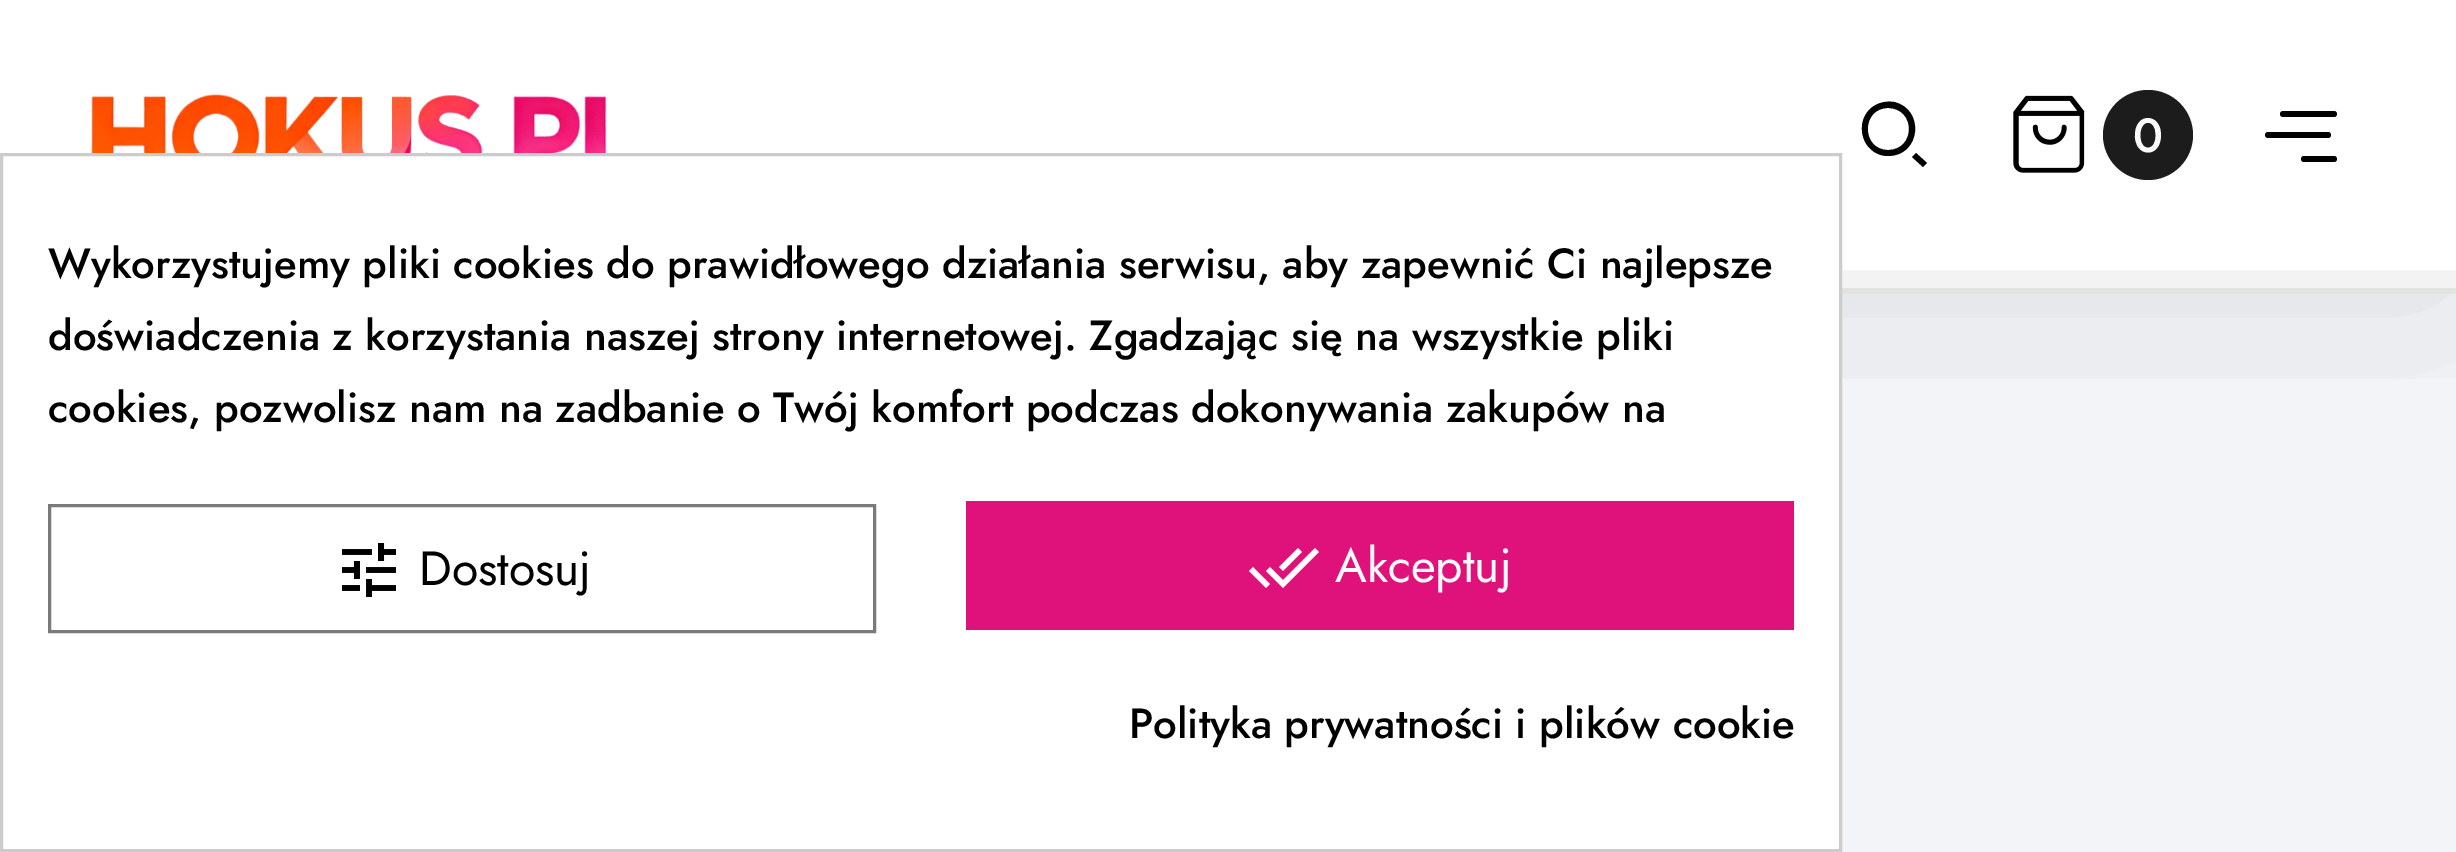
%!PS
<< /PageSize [2456 852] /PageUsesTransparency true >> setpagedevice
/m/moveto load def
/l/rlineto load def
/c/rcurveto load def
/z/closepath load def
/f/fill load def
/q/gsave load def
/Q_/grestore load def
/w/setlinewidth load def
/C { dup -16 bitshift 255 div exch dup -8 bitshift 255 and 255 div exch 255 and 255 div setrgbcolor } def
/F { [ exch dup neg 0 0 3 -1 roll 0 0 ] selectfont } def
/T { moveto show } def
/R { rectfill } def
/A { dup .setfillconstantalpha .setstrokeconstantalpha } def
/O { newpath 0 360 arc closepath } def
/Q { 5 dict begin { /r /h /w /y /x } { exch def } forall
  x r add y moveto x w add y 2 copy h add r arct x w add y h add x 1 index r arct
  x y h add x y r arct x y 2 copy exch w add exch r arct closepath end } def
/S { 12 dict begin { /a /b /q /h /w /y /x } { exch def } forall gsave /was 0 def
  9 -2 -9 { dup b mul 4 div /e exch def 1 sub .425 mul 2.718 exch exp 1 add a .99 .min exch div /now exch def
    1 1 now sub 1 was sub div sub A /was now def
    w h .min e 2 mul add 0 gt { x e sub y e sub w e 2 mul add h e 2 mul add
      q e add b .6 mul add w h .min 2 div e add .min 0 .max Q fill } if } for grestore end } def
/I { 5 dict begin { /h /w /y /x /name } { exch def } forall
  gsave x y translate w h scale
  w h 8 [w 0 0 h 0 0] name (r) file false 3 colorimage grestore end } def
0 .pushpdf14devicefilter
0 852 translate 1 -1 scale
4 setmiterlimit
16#FFFFFF C
0 0 2456 852 R
16#F3F4F8 C
1842 294 614 558 R
16#EEEEEE C
1842 288 614 6 R
q
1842 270 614 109 rectclip
16#000000 C
0 18 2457 270 0 120 .09 S
Q_
(1.rgb) 91 94 516 59 I
16#000000 C
1888 156 m -15 0 -27 -13 -26 -29 c 0 -8 5 -17 12 -21 c 6 -4 13 -5 20 -4 c 31 7 27 54 -6 54 c z 1888 108 m -27 0 -27 42 0 42 c 28 0 28 -42 0 -42 c z 1912 157 m 4 -4 l 11 10 l -4 4 l z f
(2.rgb) 2013 95 72 78 I
16#1C1C1C C
2148 135 45 O f
/Jost-Medium 48 F
16#FAFAFA C
(0) 2133 152 T
16#000000 C
2280 111 57 6 3 Q f
2265 132 66 6 3 Q f
2301 156 36 6 3 Q f
16#FFFFFF C
3 270 1836 164 R
16#CCCCCC C
3 w
1.5 154.5 1839 696 rectstroke
/Jost-Medium 42 F
16#000000 C
(Wykorzystujemy pliki cookies do prawidłowego działania serwisu, aby zapewnić Ci najlepsze) 48 278 T
(doświadczenia z korzystania naszej strony internetowej. Zgadzając się na wszystkie pliki) 48 350 T
(cookies, pozwolisz nam na zadbanie o Twój komfort podczas dokonywania zakupów na) 48 422 T
16#7A7A7A C
49.5 505.5 825 126 rectstroke
(3.rgb) 342 543 54 54 I
/Jost-Regular 48 F
16#000000 C
(Dostosuj) 419 585 T
16#DE127A C
966 501 828 129 R
16#FFFFFF C
1249 571 m 4 -4 l 17 17 l -4 4 l z 1315 548 m 4 4 l -36 36 l -17 -17 l 4 -4 l 13 13 l z 1302 552 m -19 19 l -4 -4 l 19 -19 l z f
16#FAFAFA C
(Akceptuj) 1335 582 T
/Jost-Medium 42 F
16#000000 C
(Polityka prywatności i plików cookie) 1129 738 T
.poppdf14devicefilter showpage
